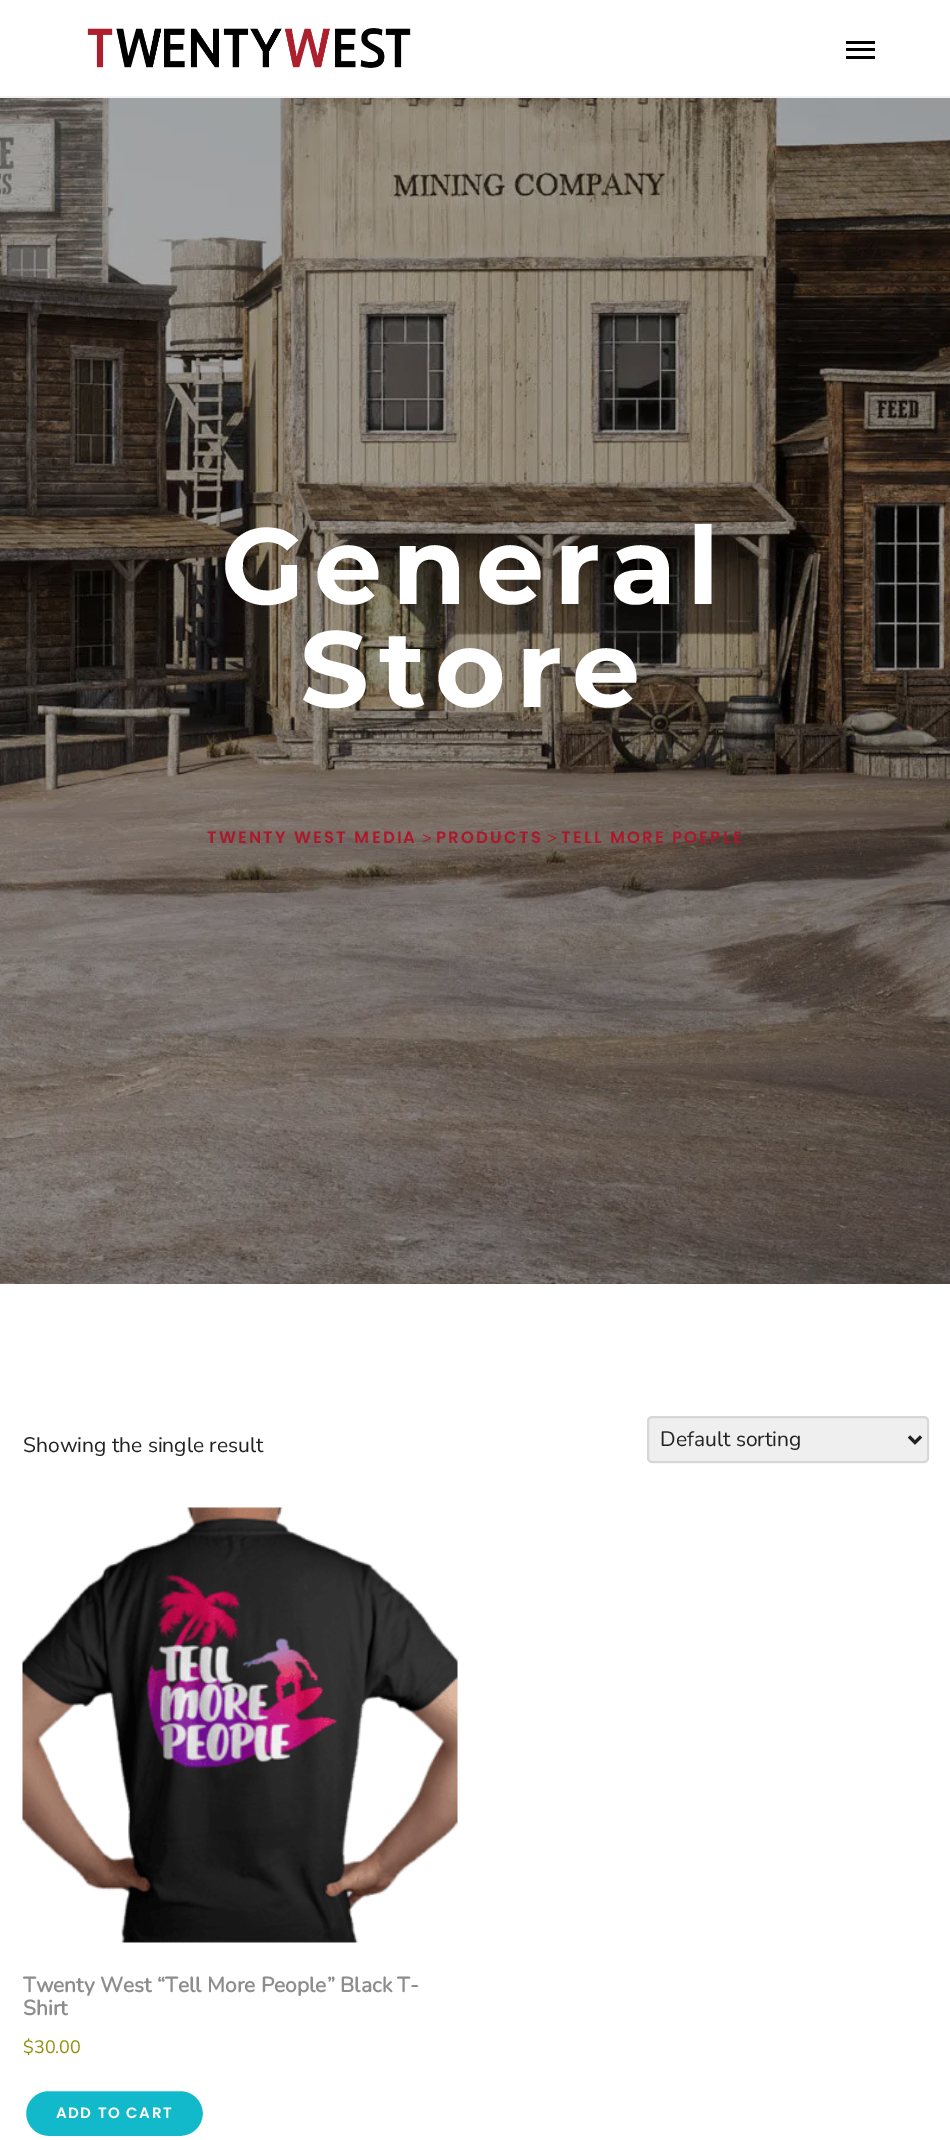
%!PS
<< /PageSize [950 2140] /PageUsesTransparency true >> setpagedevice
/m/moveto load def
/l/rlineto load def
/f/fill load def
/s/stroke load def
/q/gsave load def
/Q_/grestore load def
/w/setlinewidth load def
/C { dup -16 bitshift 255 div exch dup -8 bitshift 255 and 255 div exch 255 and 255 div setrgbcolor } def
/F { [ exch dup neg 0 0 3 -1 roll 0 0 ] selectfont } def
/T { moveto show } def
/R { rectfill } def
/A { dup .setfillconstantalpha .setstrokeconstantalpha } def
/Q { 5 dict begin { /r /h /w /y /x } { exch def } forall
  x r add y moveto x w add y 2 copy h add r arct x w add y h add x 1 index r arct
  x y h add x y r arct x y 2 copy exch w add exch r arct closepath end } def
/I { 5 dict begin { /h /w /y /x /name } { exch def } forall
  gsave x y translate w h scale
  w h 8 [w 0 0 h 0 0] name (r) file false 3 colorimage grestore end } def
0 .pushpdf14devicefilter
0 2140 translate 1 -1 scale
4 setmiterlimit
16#FFFFFF C
0 0 950 2140 R
16#F2F2F2 C
0 96 950 2 R
(1.rgb) 87 28 324 40 I
16#000000 C
846 41 29 3 R
846 48 29 3 R
846 56 29 3 R
(2.rgb) 0 98 950 1186 I
/Montserrat-Bold 108 F
16#FFFFFF C
221 604 m 9.75 0 (General) ashow
300 707 m 9.75 0 (Store) ashow
/Poppins-SemiBold 16.5 F
16#AD172B C
207 843 m 2.25 0 (TWENTY WEST MEDIA) ashow
/NunitoSans-Regular 16.5 F
(>) 422 843 T
/Poppins-SemiBold 16.5 F
436 843 m 2.25 0 (PRODUCTS) ashow
/NunitoSans-Regular 16.5 F
(>) 547 843 T
/Poppins-SemiBold 16.5 F
561 843 m 2.25 0 (TELL MORE POEPLE) ashow
/NunitoSans-Regular 21 F
16#222222 C
(Showing the single result) 23 1452 T
16#EFEFEF C
647 1416 282 47 5 Q f
0.1 A
16#000000 C
2 w
648 1417 280 45 4 Q s
1 A
16#222222 C
3 w
909 1436.5 m 6 6 l 6 -6 l s
/Nunito-Regular 21 F
(Default sorting) 660 1446 T
(3.rgb) 22 1507 436 436 I
/Nunito-Bold 21 F
16#8D8D8D C
(Twenty West “Tell More People” Black T-) 23 1992 T
(Shirt) 23 2015 T
/Nunito-Regular 18 F
16#958E09 C
($30.00) 23 2053 T
16#12B9CB C
24.5 2089.5 180 48 24 Q q f Q_
16#FFFFFF C
s
/Poppins-SemiBold 15 F
56 2118 m 1.5 0 (ADD TO CART) ashow
.poppdf14devicefilter showpage
